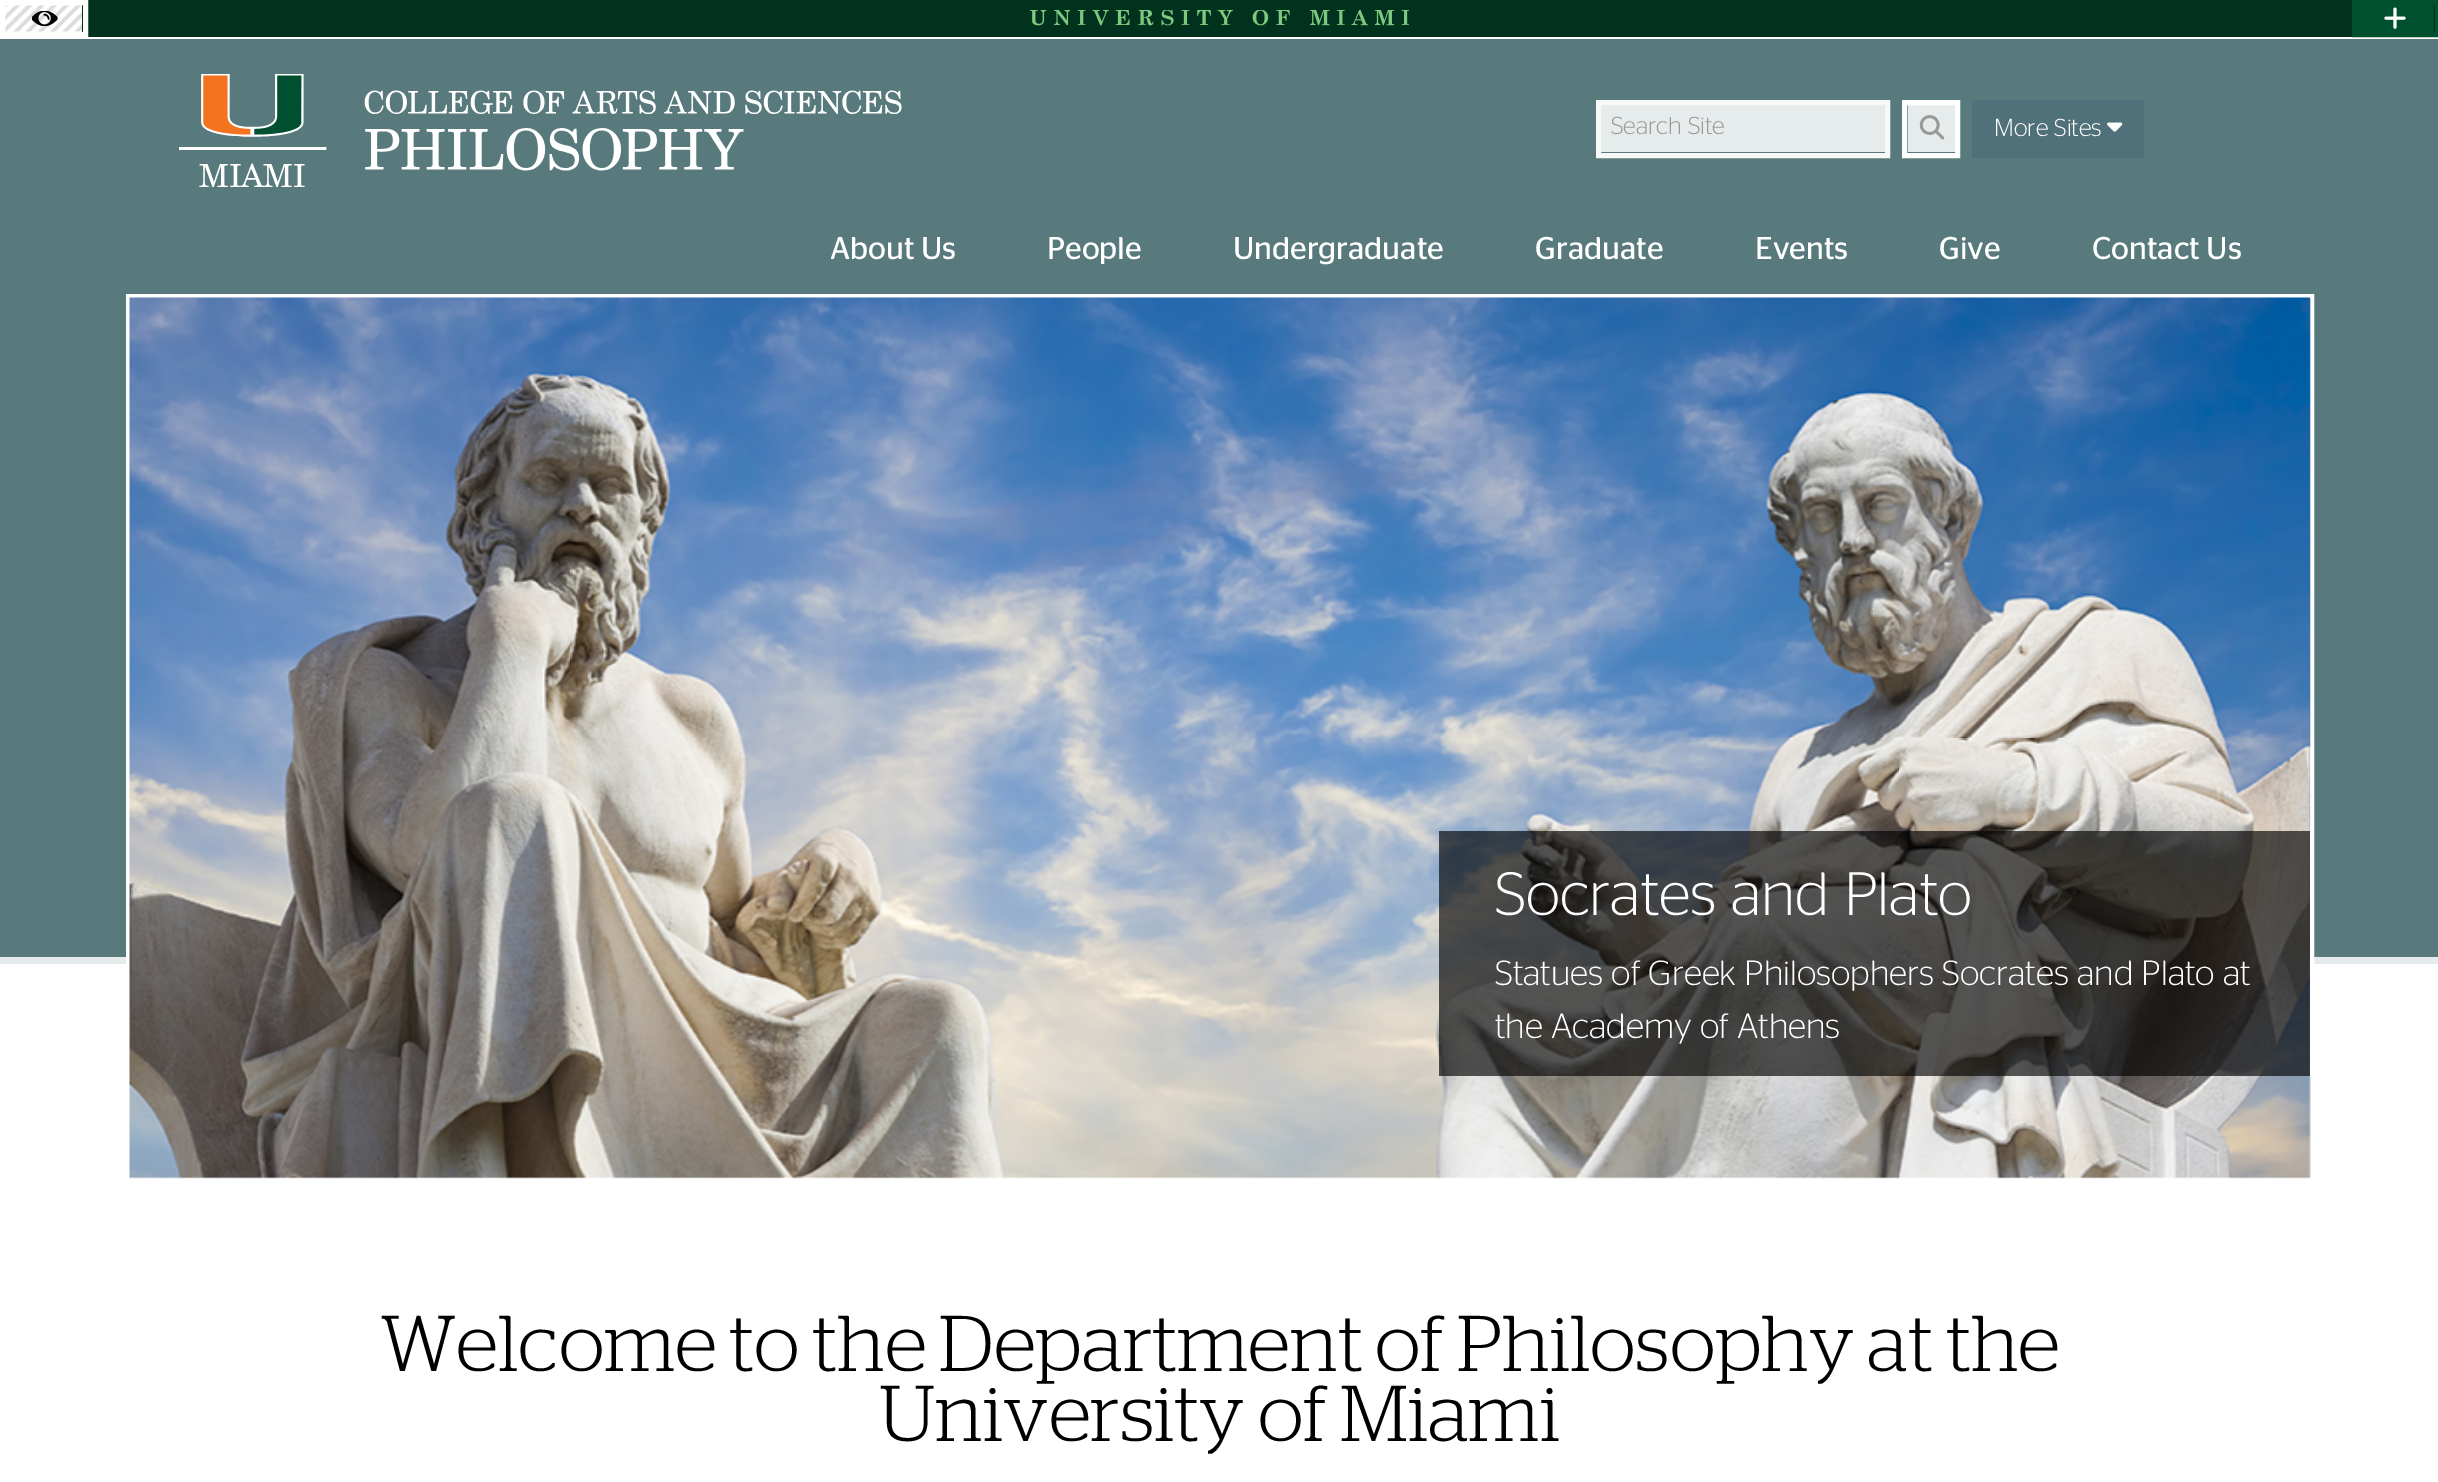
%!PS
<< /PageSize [2438 1482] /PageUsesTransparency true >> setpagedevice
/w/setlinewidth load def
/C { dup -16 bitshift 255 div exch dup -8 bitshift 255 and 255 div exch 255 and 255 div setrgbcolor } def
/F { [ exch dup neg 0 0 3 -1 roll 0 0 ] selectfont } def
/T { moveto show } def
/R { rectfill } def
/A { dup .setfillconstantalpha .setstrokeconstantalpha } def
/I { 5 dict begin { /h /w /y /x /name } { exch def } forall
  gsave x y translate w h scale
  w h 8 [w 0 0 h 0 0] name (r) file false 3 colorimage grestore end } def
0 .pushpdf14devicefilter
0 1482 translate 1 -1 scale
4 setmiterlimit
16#FFFFFF C
0 0 2438 1482 R
16#01321E C
82 0 2353 37 R
(1.rgb) 5 5 77 27 I
16#FFFFFF C
5 w
2.5 2.5 83 32 rectstroke
(2.rgb) 32 11 26 15 I
(3.rgb) 1030 10 379 16 I
16#005030 C
2357 5 77 27 R
2354.5 2.5 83 32 rectstroke
(4.rgb) 2384 7 22 22 I
16#587A7C C
0 39 2438 255 R
(5.rgb) 179 74 723 113 I
16#E6EBEB C
1601 105 284 47 R
16#F7F8F8 C
1598.5 102.5 289 53 rectstroke
/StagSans-Light 24.5 F
16#999999 C
(Search Site) 1611 134 T
16#E6EBEB C
1908 105 47 47 R
16#FFFFFF C
1904.5 102.5 53 53 rectstroke
(6.rgb) 1919 115 26 25 I
16#507179 C
1972 100 172 58 R
16#FFFFFF C
(More Sites) 1994 136 T
(7.rgb) 2107 122 16 10 I
/StagSans-Regular 31.5 F
(About Us) 830 259 T
(People) 1047 259 T
(Undergraduate) 1233 259 T
(Graduate) 1535 259 T
(Events) 1755 259 T
(Give) 1939 259 T
(Contact Us) 2092 259 T
16#E5EBEC C
0 957 2438 7 R
16#587A7C C
0 294 2438 663 R
16#FFFFFF C
4 w
128 296 2184 883 rectstroke
(8.rgb) 129 297 2182 882 I
0.65 A
16#000000 C
1439 831 871 245 R
1 A
16#FFFFFF C
2310 831 1 245 R
/StagSans-Light 61.25 F
(Socrates and Plato) 1495 915 T
/StagSans-Light 35 F
(Statues of Greek Philosophers Socrates and Plato at) 1495 985 T
(the Academy of Athens) 1495 1038 T
/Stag-Light 78.75 F
16#000000 C
(Welcome to the Department of Philosophy at the) 380 1371 T
(University of Miami) 879 1441 T
.poppdf14devicefilter showpage
